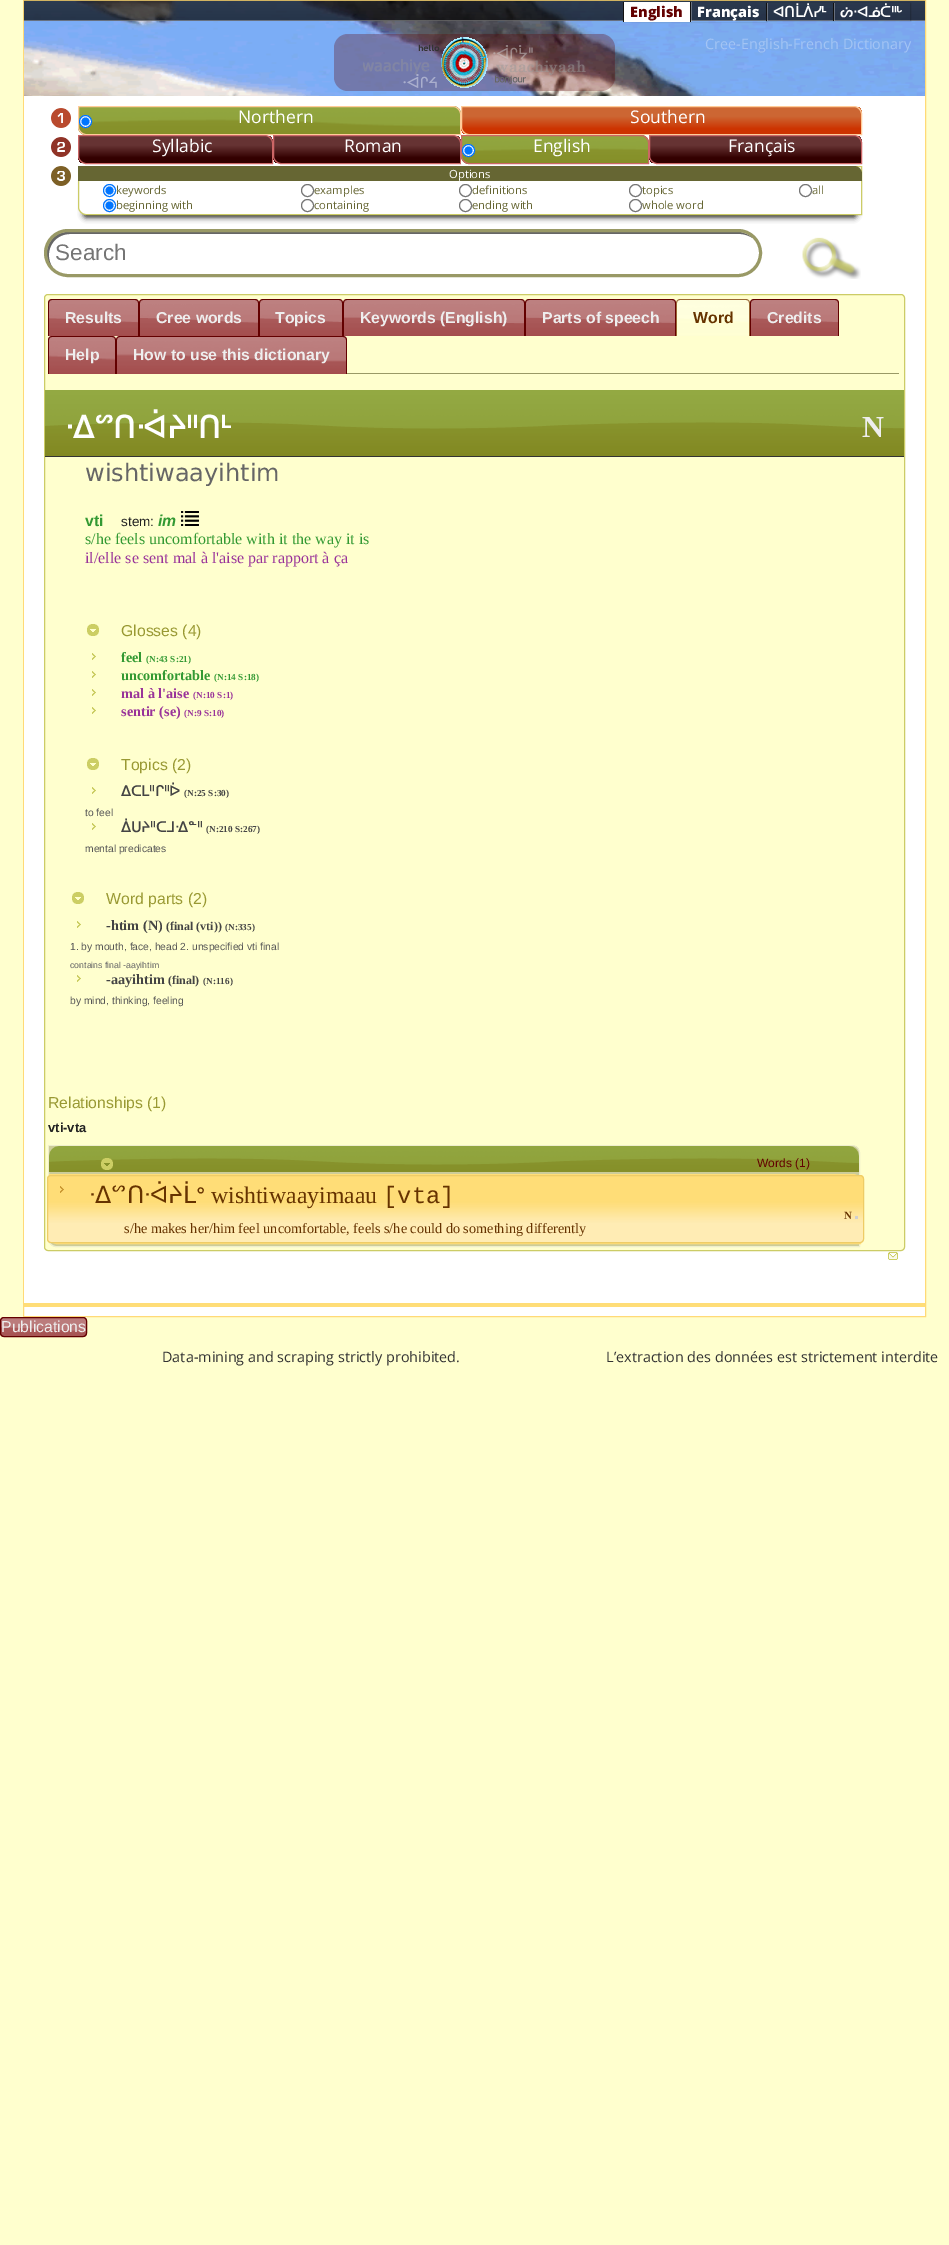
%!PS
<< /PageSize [949 2245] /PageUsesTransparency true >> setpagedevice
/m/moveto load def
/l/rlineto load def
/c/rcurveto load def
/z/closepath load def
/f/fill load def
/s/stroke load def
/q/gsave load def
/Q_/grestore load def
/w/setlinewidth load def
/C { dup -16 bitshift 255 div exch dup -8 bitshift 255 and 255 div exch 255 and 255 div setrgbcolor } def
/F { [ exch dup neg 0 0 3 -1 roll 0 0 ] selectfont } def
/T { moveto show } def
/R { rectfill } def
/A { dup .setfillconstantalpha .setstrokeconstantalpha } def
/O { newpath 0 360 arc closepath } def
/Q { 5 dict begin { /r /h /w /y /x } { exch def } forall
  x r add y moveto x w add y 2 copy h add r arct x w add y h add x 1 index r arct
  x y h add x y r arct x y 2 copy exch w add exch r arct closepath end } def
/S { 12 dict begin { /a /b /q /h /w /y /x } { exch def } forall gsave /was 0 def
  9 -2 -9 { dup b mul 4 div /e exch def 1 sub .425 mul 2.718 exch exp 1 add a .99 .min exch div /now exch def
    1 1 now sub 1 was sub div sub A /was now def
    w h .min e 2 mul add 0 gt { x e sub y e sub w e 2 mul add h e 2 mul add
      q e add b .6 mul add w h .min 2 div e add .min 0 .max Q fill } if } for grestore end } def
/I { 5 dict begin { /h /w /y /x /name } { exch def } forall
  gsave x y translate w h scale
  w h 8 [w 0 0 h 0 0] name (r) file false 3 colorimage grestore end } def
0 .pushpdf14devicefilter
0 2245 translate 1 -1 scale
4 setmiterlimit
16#FFFFCE C
0 0 949 2245 R
16#FFFFFF C
24 1307 901 9 R
16#FFDA77 C
23.5 .5 902 1316 rectstroke
(1.rgb) 24 1 901 95 I
16#FFDD77 C
24 1303 901 4 R
q
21 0 m 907 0 l 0 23 l -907 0 l z 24 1 m 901 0 l 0 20 l -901 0 l z eoclip newpath
16#000000 C
24 0 901 20 0 .5 .2 S
Q_
0.3 A
16#FFFFFF C
24 20 901 1 R
1 A
16#000000 C
624 2 67 20 0 .5 .2 S
16#FFFFFF C
624 2 66 20 R
/OpenSans-ExtraBold 14.5 F
16#630000 C
(English) 630 17 T
16#111111 C
623 2 1 20 R
q
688 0 m 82 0 l 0 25 l -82 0 l z 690 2 m 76 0 l 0 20 l -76 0 l z eoclip newpath
16#000000 C
691 2 76 20 0 .5 .2 S
Q_
16#FFFFFF C
(Français) 697 17 T
0.3 A
691 2 1 20 R
1 A
16#111111 C
690 2 1 20 R
q
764 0 m 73 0 l 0 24 l -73 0 l z 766 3 m 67 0 l 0 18 l -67 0 l z eoclip newpath
16#000000 C
767 3 67 18 0 .5 .2 S
Q_
/DejaVuSans-Bold 14.5 F
16#FFFFFF C
(ᐊᑎᒫᐲᓯᒻ) 773 17 T
0.3 A
767 3 1 18 R
1 A
16#111111 C
766 3 1 18 R
q
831 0 m 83 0 l 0 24 l -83 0 l z 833 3 m 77 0 l 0 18 l -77 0 l z eoclip newpath
16#000000 C
834 3 77 18 0 .5 .2 S
Q_
16#FFFFFF C
(ᔖᐧᐊᓅᑖᐦᒡ) 840 17 T
0.3 A
834 3 1 18 R
1 A
16#111111 C
833 3 1 18 R
0.3 A
16#5D0000 C
334 34 281 57 14 Q f
1 A
(2.rgb) 363 37 223 51 I
/OpenSans-Regular 14.4 F
16#A3C4F4 C
(Cree-English-French Dictionary) 705 49 T
16#FFFFFF C
24 96 901 1207 R
(3.rgb) 51 108 20 20 I
(4.rgb) 78 106 383 29 I
16#FFCC99 C
78.5 106.5 m 374.5 0 l 4 0 7.5 3.5 7.5 7.5 c 0 20.5 l -374.5 0 l -4 0 -7.5 -3.5 -7.5 -7.5 c z s
16#FFFFFF C
85.5 121.5 6 O q f Q_
16#0075FF C
s
85.5 121.5 4 O f
/OpenSans-Regular 17.5 F
16#FFFFFF C
(Northern) 238 123 T
q
461 106 m 393 0 l 4.5 0 8 3.5 8 8 c 0 21 l -393 0 l -4.5 0 -8 -3.5 -8 -8 c z clip newpath
q 461 107 m 401 0 l 0 27 l -401 0 l z clip newpath
<< /ShadingType 2 /ColorSpace /DeviceRGB /Coords [462 134 462 107] /Extend [true true] /Function << /FunctionType 3 /Domain [0 1] /Functions [<< /FunctionType 2 /Domain [0 1] /C0 [.8 .2 0] /C1 [.8 .2 0] /N 1 >> << /FunctionType 2 /Domain [0 1] /C0 [.8 .2 0] /C1 [.8 .4 .2] /N 1 >> << /FunctionType 2 /Domain [0 1] /C0 [.8 .4 .2] /C1 [.8 .4 .2] /N 1 >>] /Bounds [.19 .65] /Encode [0 1 0 1 0 1] >> >> shfill Q_
Q_
16#FFCC99 C
461.5 106.5 m 392.5 0 l 4 0 7.5 3.5 7.5 7.5 c 0 20.5 l -392.5 0 l -4 0 -7.5 -3.5 -7.5 -7.5 c z s
16#FFFFFF C
(Southern) 630 123 T
(5.rgb) 51 137 20 20 I
q
78 135 m 187 0 l 4.5 0 8 3.5 8 8 c 0 21 l -187 0 l -4.5 0 -8 -3.5 -8 -8 c z clip newpath
q 78 136 m 195 0 l 0 27 l -195 0 l z clip newpath
<< /ShadingType 2 /ColorSpace /DeviceRGB /Coords [79 163 79 136] /Extend [true true] /Function << /FunctionType 3 /Domain [0 1] /Functions [<< /FunctionType 2 /Domain [0 1] /C0 [.2 0 0] /C1 [.2 0 0] /N 1 >> << /FunctionType 2 /Domain [0 1] /C0 [.2 0 0] /C1 [.4 .2 .2] /N 1 >> << /FunctionType 2 /Domain [0 1] /C0 [.4 .2 .2] /C1 [.4 .2 .2] /N 1 >>] /Bounds [.19 .65] /Encode [0 1 0 1 0 1] >> >> shfill Q_
Q_
16#CC6666 C
78.5 135.5 m 186.5 0 l 4 0 7.5 3.5 7.5 7.5 c 0 20.5 l -186.5 0 l -4 0 -7.5 -3.5 -7.5 -7.5 c z s
16#FFFFFF C
(Syllabic) 152 152 T
q
273 135 m 180 0 l 4.5 0 8 3.5 8 8 c 0 21 l -180 0 l -4.5 0 -8 -3.5 -8 -8 c z clip newpath
q 273 136 m 188 0 l 0 27 l -188 0 l z clip newpath
<< /ShadingType 2 /ColorSpace /DeviceRGB /Coords [274 163 274 136] /Extend [true true] /Function << /FunctionType 3 /Domain [0 1] /Functions [<< /FunctionType 2 /Domain [0 1] /C0 [.2 0 0] /C1 [.2 0 0] /N 1 >> << /FunctionType 2 /Domain [0 1] /C0 [.2 0 0] /C1 [.4 .2 .2] /N 1 >> << /FunctionType 2 /Domain [0 1] /C0 [.4 .2 .2] /C1 [.4 .2 .2] /N 1 >>] /Bounds [.19 .65] /Encode [0 1 0 1 0 1] >> >> shfill Q_
Q_
16#CC6666 C
273.5 135.5 m 179.5 0 l 4 0 7.5 3.5 7.5 7.5 c 0 20.5 l -179.5 0 l -4 0 -7.5 -3.5 -7.5 -7.5 c z s
16#FFFFFF C
(Roman) 344 152 T
(6.rgb) 461 135 188 29 I
16#CC6666 C
461.5 135.5 m 179.5 0 l 4 0 7.5 3.5 7.5 7.5 c 0 20.5 l -179.5 0 l -4 0 -7.5 -3.5 -7.5 -7.5 c z s
16#FFFFFF C
468.5 150.5 6 O q f Q_
16#0075FF C
s
468.5 150.5 4 O f
16#FFFFFF C
(English) 533 152 T
q
649 135 m 205 0 l 4.5 0 8 3.5 8 8 c 0 21 l -205 0 l -4.5 0 -8 -3.5 -8 -8 c z clip newpath
q 649 136 m 213 0 l 0 27 l -213 0 l z clip newpath
<< /ShadingType 2 /ColorSpace /DeviceRGB /Coords [650 163 650 136] /Extend [true true] /Function << /FunctionType 3 /Domain [0 1] /Functions [<< /FunctionType 2 /Domain [0 1] /C0 [.2 0 0] /C1 [.2 0 0] /N 1 >> << /FunctionType 2 /Domain [0 1] /C0 [.2 0 0] /C1 [.4 .2 .2] /N 1 >> << /FunctionType 2 /Domain [0 1] /C0 [.4 .2 .2] /C1 [.4 .2 .2] /N 1 >>] /Bounds [.19 .65] /Encode [0 1 0 1 0 1] >> >> shfill Q_
Q_
16#CC6666 C
649.5 135.5 m 204.5 0 l 4 0 7.5 3.5 7.5 7.5 c 0 20.5 l -204.5 0 l -4 0 -7.5 -3.5 -7.5 -7.5 c z s
16#FFFFFF C
(Français) 728 152 T
(7.rgb) 51 166 20 20 I
q
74 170 m 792 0 l 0 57 l -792 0 l z 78 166 m 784 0 l 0 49 l -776 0 l -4.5 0 -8 -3.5 -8 -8 c z eoclip newpath
16#000000 C
84 180 772 37 2 3 1 S
Q_
16#CCCC66 C
78.5 166.5 m 783 0 l 0 48 l -775.5 0 l -4 0 -7.5 -3.5 -7.5 -7.5 c z s
16#666633 C
78 166 m 776 0 l 4.5 0 8 3.5 8 8 c 0 7 l -784 0 l z f
/OpenSans-Regular 11.25 F
16#FFFFFF C
(Options) 449 178 T
16#0075FF C
109.5 190.5 6 O s
109.5 190.5 4 O f
16#666633 C
(keywords) 116 194 T
16#767676 C
307.5 190.5 6 O s
16#666633 C
(examples) 314 194 T
16#767676 C
465.5 190.5 6 O s
16#666633 C
(definitions) 472 194 T
16#767676 C
635.5 190.5 6 O s
16#666633 C
(topics) 642 194 T
16#767676 C
805.5 190.5 6 O s
16#666633 C
(all) 812 194 T
16#0075FF C
109.5 205.5 6 O s
109.5 205.5 4 O f
16#666633 C
(beginning with) 116 209 T
16#767676 C
307.5 205.5 6 O s
16#666633 C
(containing) 314 209 T
16#767676 C
465.5 205.5 6 O s
16#666633 C
(ending with) 472 209 T
16#767676 C
635.5 205.5 6 O s
16#666633 C
(whole word) 642 209 T
16#666666 C
70 234 m 670 0 l 5 0 9 2 13 4 c -4 -3 -8 -5 -13 -6 c -672 0 l -19 0 -28 23 -15 36 c -10 -14 -1 -34 17 -34 c z f
16#999966 C
3 w
45.5 230.5 715 45 22.5 Q s
/LiberationSans-Regular 22.5 F
16#757575 C
(Search) 55 260 T
(8.rgb) 802 237 59 42 I
16#FFFFCE C
44.5 294.5 860 956 3.5 Q q f Q_
16#CCCC66 C
1 w
s
16#999966 C
347 373 552 1 R
(9.rgb) 48 299 91 37 I
16#630000 C
52 299 m 83 0 l 2 0 4 2 4 4 c 0 33 l -91 0 l 0 -33 l 0 -2 2 -4 4 -4 c z 52 300 m 83 0 l 2 0 3 1 3 3 c 0 33 l -89 0 l 0 -33 l 0 -2 1 -3 3 -3 c z eofill
/LiberationSans-Bold 15.8 F
16#EEEEEE C
(Results) 65 323 T
(10.rgb) 139 299 120 37 I
16#630000 C
143 299 m 112 0 l 2 0 4 2 4 4 c 0 33 l -120 0 l 0 -33 l 0 -2 2 -4 4 -4 c z 143 300 m 112 0 l 2 0 3 1 3 3 c 0 33 l -118 0 l 0 -33 l 0 -2 1 -3 3 -3 c z eofill
16#EEEEEE C
(Cree words) 156 323 T
(11.rgb) 259 299 84 37 I
16#630000 C
263 299 m 76 0 l 2 0 4 2 4 4 c 0 33 l -84 0 l 0 -33 l 0 -2 2 -4 4 -4 c z 263 300 m 76 0 l 2 0 3 1 3 3 c 0 33 l -82 0 l 0 -33 l 0 -2 1 -3 3 -3 c z eofill
16#EEEEEE C
(Topics) 275 323 T
(12.rgb) 343 299 182 37 I
16#630000 C
347 299 m 174 0 l 2 0 4 2 4 4 c 0 33 l -182 0 l 0 -33 l 0 -2 2 -4 4 -4 c z 347 300 m 174 0 l 2 0 3 1 3 3 c 0 33 l -180 0 l 0 -33 l 0 -2 1 -3 3 -3 c z eofill
16#EEEEEE C
(Keywords \(English\)) 360 323 T
(13.rgb) 525 299 151 37 I
16#630000 C
529 299 m 143 0 l 2 0 4 2 4 4 c 0 33 l -151 0 l 0 -33 l 0 -2 2 -4 4 -4 c z 529 300 m 143 0 l 2 0 3 1 3 3 c 0 33 l -149 0 l 0 -33 l 0 -2 1 -3 3 -3 c z eofill
16#EEEEEE C
(Parts of speech) 542 323 T
(14.rgb) 676 299 74 37 I
16#996633 C
680 299 m 66 0 l 2 0 4 2 4 4 c 0 33 l -74 0 l 0 -33 l 0 -2 2 -4 4 -4 c z 680 300 m 66 0 l 2 0 3 1 3 3 c 0 33 l -72 0 l 0 -33 l 0 -2 1 -3 3 -3 c z eofill
16#663300 C
(Word) 693 323 T
(15.rgb) 750 299 89 37 I
16#630000 C
754 299 m 81 0 l 2 0 4 2 4 4 c 0 33 l -89 0 l 0 -33 l 0 -2 2 -4 4 -4 c z 754 300 m 81 0 l 2 0 3 1 3 3 c 0 33 l -87 0 l 0 -33 l 0 -2 1 -3 3 -3 c z eofill
16#EEEEEE C
(Credits) 767 323 T
(16.rgb) 48 336 68 38 I
16#630000 C
52 336 m 60 0 l 2 0 4 2 4 4 c 0 34 l -68 0 l 0 -34 l 0 -2 2 -4 4 -4 c z 52 337 m 60 0 l 2 0 3 1 3 3 c 0 34 l -66 0 l 0 -34 l 0 -2 1 -3 3 -3 c z eofill
16#EEEEEE C
(Help) 65 360 T
(17.rgb) 116 336 231 38 I
16#630000 C
120 336 m 223 0 l 2 0 4 2 4 4 c 0 34 l -231 0 l 0 -34 l 0 -2 2 -4 4 -4 c z 120 337 m 223 0 l 2 0 3 1 3 3 c 0 34 l -229 0 l 0 -34 l 0 -2 1 -3 3 -3 c z eofill
16#EEEEEE C
(How to use this dictionary) 133 360 T
(18.rgb) 45 390 859 66 I
16#333333 C
45 456 859 1 R
/DejaVuSans-Bold 30.5 F
16#FFFFFF C
(ᐧᐃᔥᑎᐧᐋᔨᐦᑎᒻ) 65 438 T
/LiberationSerif-Bold 30.5 F
16#EEEEEE C
(N) 862 437 T
/DejaVuSans-Regular 24 F
16#666666 C
(wishtiwaayihtim) 85 481 T
/LiberationSans-Bold 15.8 F
16#339933 C
(vti) 85 526 T
/LiberationSans-Regular 13.5 F
16#222222 C
(stem:) 121 526 T
/LiberationSans-BoldItalic 15.8 F
16#339933 C
(im) 158 526 T
(19.rgb) 181 511 18 15 I
/LiberationSerif-Regular 16 F
(s/he feels uncomfortable with it the way it is) 85 544 T
16#993399 C
(il/elle se sent mal à l'aise par rapport à ça) 85 563 T
(20.rgb) 87 624 12 12 I
/LiberationSans-Regular 15.8 F
16#999933 C
(Glosses \(4\)) 121 636 T
(21.rgb) 92 653 4 7 I
/LiberationSerif-Bold 14.25 F
16#339933 C
(feel) 121 662 T
/LiberationSerif-Bold 9.25 F
(\(N:43 S:21\)) 146 662 T
(21.rgb) 92 671 4 7 I
/LiberationSerif-Bold 14.25 F
(uncomfortable) 121 680 T
/LiberationSerif-Bold 9.25 F
(\(N:14 S:18\)) 214 680 T
(21.rgb) 92 689 4 7 I
/LiberationSerif-Bold 14.25 F
16#993399 C
(mal à l'aise) 121 698 T
/LiberationSerif-Bold 9.25 F
(\(N:10 S:1\)) 193 698 T
(21.rgb) 92 707 4 7 I
/LiberationSerif-Bold 14.25 F
(sentir \(se\)) 121 716 T
/LiberationSerif-Bold 9.25 F
(\(N:9 S:10\)) 184 716 T
(20.rgb) 87 758 12 12 I
/LiberationSans-Regular 15.8 F
16#999933 C
(Topics \(2\)) 121 770 T
(21.rgb) 92 787 4 7 I
/DejaVuSans-Bold 14.25 F
16#444444 C
(ᐃᑕᒪᐦᒋᐦᐆ) 121 796 T
/LiberationSerif-Bold 9.25 F
(\(N:25 S:30\)) 184 796 T
/LiberationSans-Regular 10.3 F
16#555555 C
(to feel) 85 816 T
(21.rgb) 92 823 4 7 I
/DejaVuSans-Bold 14.25 F
16#444444 C
(ᐄᑌᔨᐦᑕᒧᐧᐃᓐᐦ) 121 832 T
/LiberationSerif-Bold 9.25 F
(\(N:210 S:267\)) 206 832 T
/LiberationSans-Regular 10.3 F
16#555555 C
(mental predicates) 85 852 T
(20.rgb) 72 892 12 12 I
/LiberationSans-Regular 15.8 F
16#999933 C
(Word parts \(2\)) 106 904 T
(21.rgb) 77 921 4 7 I
/LiberationSerif-Bold 14.25 F
16#444444 C
(-htim \(N\)) 106 930 T
/LiberationSerif-Bold 12 F
(\(final \(vti\)\)) 166 930 T
/LiberationSerif-Bold 9.25 F
(\(N:335\)) 225 930 T
/LiberationSans-Regular 10.3 F
16#555555 C
(1. by mouth, face, head 2. unspecified vti final) 70 950 T
/LiberationSans-Regular 8.75 F
16#666666 C
(contains final -aayihtim) 70 968 T
(21.rgb) 77 975 4 7 I
/LiberationSerif-Bold 14.25 F
16#444444 C
(-aayihtim) 106 984 T
/LiberationSerif-Bold 12 F
(\(final\)) 168 984 T
/LiberationSerif-Bold 9.25 F
(\(N:116\)) 203 984 T
/LiberationSans-Regular 10.3 F
16#555555 C
(by mind, thinking, feeling) 70 1004 T
/LiberationSans-Regular 15.8 F
16#999933 C
(Relationships \(1\)) 48 1108 T
/LiberationSans-Bold 13 F
16#222222 C
(vti-vta) 48 1132 T
16#CCCC99 C
48.5 1145.5 m 803.5 0 l 4 0 7.5 3.5 7.5 7.5 c 0 93.5 l -803.5 0 l -4 0 -7.5 -3.5 -7.5 -7.5 c z q f Q_
16#EEEECC C
s
(22.rgb) 49 1146 810 26 I
(23.rgb) 101 1158 12 12 I
/LiberationSans-Regular 12 F
16#630000 C
(Words \(1\)) 757 1167 T
16#FFDD77 C
49.5 1174.5 m 803.5 0 l 4 0 7.5 3.5 7.5 7.5 c 0 61.5 l -803.5 0 l -4 0 -7.5 -3.5 -7.5 -7.5 c z s
(24.rgb) 47 1175 817 68 I
16#EECC66 C
47.5 1175.5 816 67 3.5 Q s
(25.rgb) 60 1186 4 7 I
/DejaVuSans-Regular 23.75 F
16#663300 C
(ᐧᐃᔥᑎᐧᐋᔨᒫᐤ) 89 1203 T
/LiberationSerif-Regular 23.75 F
(wishtiwaayimaau) 211 1203 T
/LiberationMono-Regular 23.75 F
([vta]) 383 1203 T
/LiberationSerif-Bold 11 F
(N) 844 1219 T
16#CFCFCF C
855 1216 3 3 R
/LiberationSerif-Regular 14.25 F
16#663300 C
(s/he makes her/him feel uncomfortable, feels s/he could do something differently) 124 1233 T
(26.rgb) 888 1252 10 8 I
(27.rgb) 0 1317 87 20 I
16#630000 C
.5 1317.5 86 19 3.5 Q s
/LiberationSans-Regular 15.8 F
16#EEEEEE C
(Publications) 1 1332 T
/OpenSans-Regular 14.4 F
16#333333 C
(Data-mining and scraping strictly prohibited.) 162 1362 T
(L’extraction des données est strictement interdite) 606 1362 T
.poppdf14devicefilter showpage
